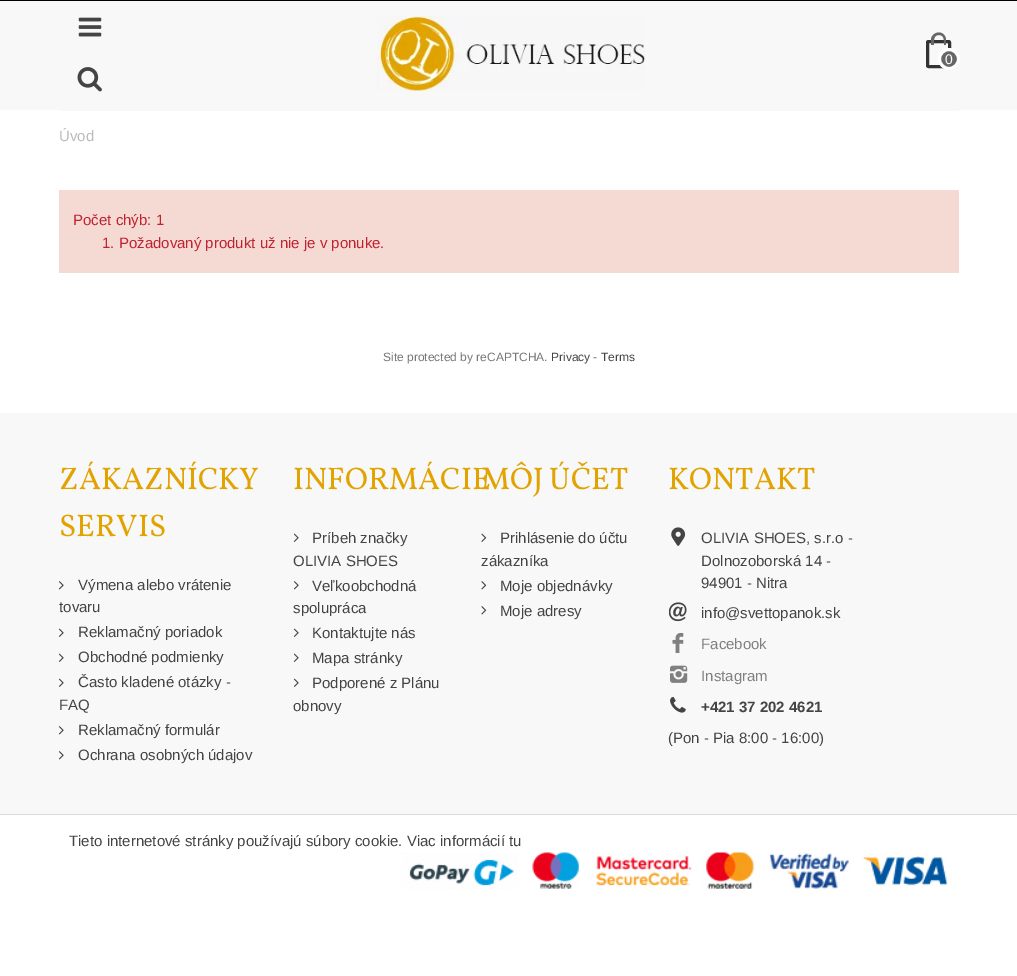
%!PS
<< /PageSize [1017 976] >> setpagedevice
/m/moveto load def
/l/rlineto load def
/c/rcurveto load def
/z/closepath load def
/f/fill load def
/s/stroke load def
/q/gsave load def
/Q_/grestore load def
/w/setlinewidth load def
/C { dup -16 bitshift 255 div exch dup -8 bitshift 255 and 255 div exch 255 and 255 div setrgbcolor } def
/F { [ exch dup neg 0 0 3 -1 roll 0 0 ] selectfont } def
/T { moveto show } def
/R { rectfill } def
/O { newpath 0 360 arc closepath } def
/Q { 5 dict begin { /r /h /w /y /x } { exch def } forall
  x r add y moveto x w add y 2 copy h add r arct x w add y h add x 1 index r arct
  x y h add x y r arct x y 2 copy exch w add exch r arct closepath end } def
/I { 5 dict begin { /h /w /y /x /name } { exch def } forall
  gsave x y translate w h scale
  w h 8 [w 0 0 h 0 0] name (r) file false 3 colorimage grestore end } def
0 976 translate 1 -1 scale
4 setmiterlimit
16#FFFFFF C
0 0 1017 976 R
16#F8F8F8 C
0 1 1017 109 R
16#000000 C
0 0 1017 1 R
(1.rgb) 78 17 24 20 I
(2.rgb) 77 67 25 25 I
(3.rgb) 377 16 268 76 I
16#333333 C
3 w
927.5 41.5 22 25 1 Q s
16#666666 C
939 32.5 m 4 0 7 3.5 7 7.5 c 0 5 l -15 0 l 0 -5 l 0 -4 3.5 -7.5 8 -7.5 c z 939 35 m 5.5 0 5 6 5 10 c -10 0 l 0 -4 -1 -10 5 -10 c z eofill
949 59 9.5 O q f Q_
16#FFFFFF C
s
/LiberationSans-Regular 14 F
(0) 945 64 T
16#F8F8F8 C
59 110 900 1 R
/LiberationSans-Regular 15 F
16#BBBBBB C
(Úvod) 59 141 T
16#F5DAD3 C
59 190 900 83 R
16#C02230 C
(Počet chýb: 1) 73 225 T
(1. Požadovaný produkt už nie je v ponuke.) 102 248 T
/LiberationSans-Regular 12 F
16#777777 C
(Site protected by reCAPTCHA.) 383 361 T
16#444444 C
(Privacy) 551 361 T
16#777777 C
(-) 593 361 T
16#444444 C
(Terms) 601 361 T
16#F8F8F8 C
0 413 1017 401 R
/Vollkorn-Regular 31.25 F
16#E2A301 C
(ZÁKAZNÍCKY) 59 489 T
(SERVIS) 59 536 T
(4.rgb) 58 581 6 9 I
/LiberationSans-Regular 15 F
16#444444 C
(Výmena alebo vrátenie) 78 590 T
(tovaru) 59 612 T
(5.rgb) 58 628 6 9 I
(Reklamačný poriadok) 78 637 T
(5.rgb) 58 653 6 9 I
(Obchodné podmienky) 78 662 T
(5.rgb) 58 678 6 9 I
(Často kladené otázky -) 78 687 T
(FAQ) 59 710 T
(4.rgb) 58 726 6 9 I
(Reklamačný formulár) 78 735 T
(4.rgb) 58 751 6 9 I
(Ochrana osobných údajov) 78 760 T
/Vollkorn-Regular 31.25 F
16#E2A301 C
(INFORMÁCIE) 293 489 T
(5.rgb) 293 533 6 9 I
/LiberationSans-Regular 15 F
16#444444 C
(Príbeh značky) 312 543 T
(OLIVIA SHOES) 293 566 T
(4.rgb) 293 581 6 9 I
(Veľkoobchodná) 312 591 T
(spolupráca) 293 613 T
(5.rgb) 293 628 6 9 I
(Kontaktujte nás) 312 638 T
(5.rgb) 293 653 6 9 I
(Mapa stránky) 312 663 T
(5.rgb) 293 678 6 9 I
(Podporené z Plánu) 312 688 T
(obnovy) 293 711 T
/Vollkorn-Regular 31.25 F
16#E2A301 C
(MÔJ ÚČET) 481 489 T
(6.rgb) 481 533 6 9 I
/LiberationSans-Regular 15 F
16#444444 C
(Prihlásenie do účtu) 500 543 T
(zákazníka) 481 566 T
(7.rgb) 481 581 6 9 I
(Moje objednávky) 500 591 T
(7.rgb) 481 606 6 9 I
(Moje adresy) 500 616 T
/Vollkorn-Regular 31.25 F
16#E2A301 C
(KONTAKT) 668 489 T
(8.rgb) 671 527 15 19 I
/LiberationSans-Regular 15 F
16#444444 C
(OLIVIA SHOES, s.r.o -) 701 543 T
(Dolnozoborská 14 -) 701 566 T
(94901 - Nitra) 701 588 T
(9.rgb) 669 602 18 20 I
(info@svettopanok.sk) 701 618 T
(10.rgb) 672 633 12 20 I
16#808080 C
(Facebook) 701 649 T
(11.rgb) 670 665 18 18 I
(Instagram) 701 681 T
(12.rgb) 670 696 16 17 I
/LiberationSans-Bold 15 F
16#444444 C
(+421 37 202 4621) 701 712 T
/LiberationSans-Regular 15 F
(\(Pon - Pia 8:00 - 16:00\)) 668 743 T
16#DADADA C
0 814 1017 1 R
16#444444 C
(Tieto internetové stránky používajú súbory cookie. Viac informácií tu) 69 846 T
(13.rgb) 400 852 548 38 I
showpage
